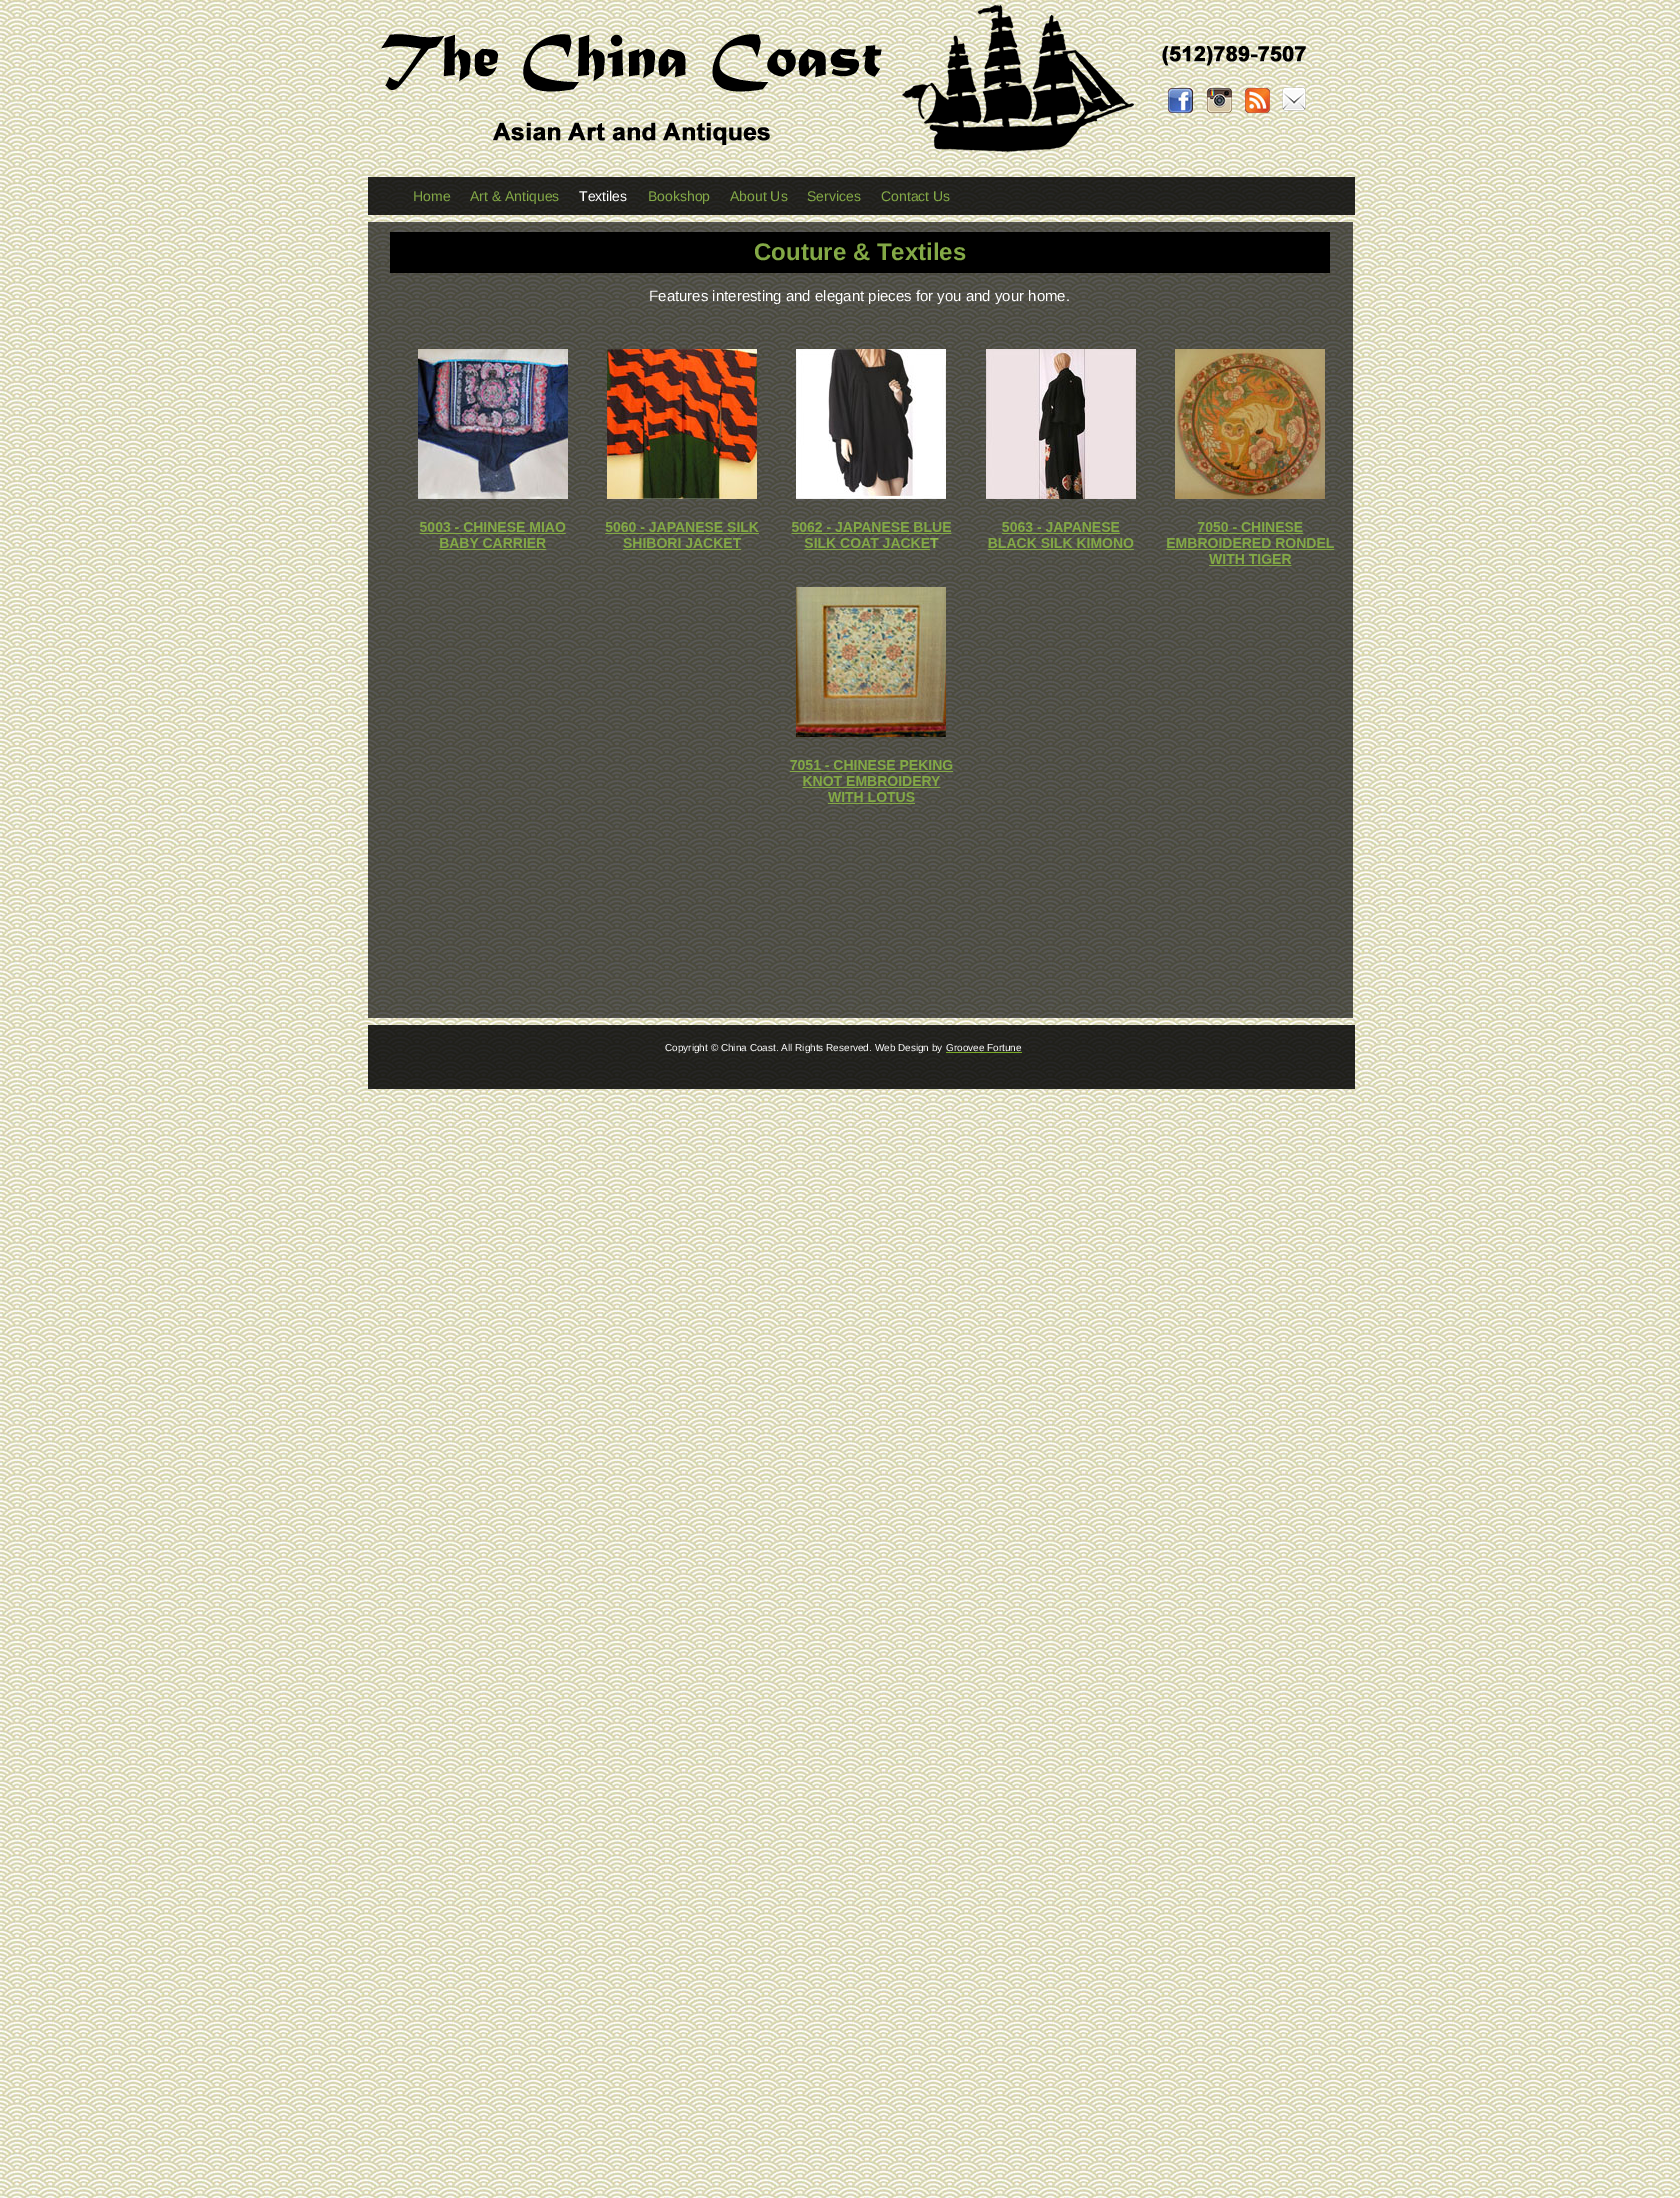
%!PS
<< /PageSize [1680 2198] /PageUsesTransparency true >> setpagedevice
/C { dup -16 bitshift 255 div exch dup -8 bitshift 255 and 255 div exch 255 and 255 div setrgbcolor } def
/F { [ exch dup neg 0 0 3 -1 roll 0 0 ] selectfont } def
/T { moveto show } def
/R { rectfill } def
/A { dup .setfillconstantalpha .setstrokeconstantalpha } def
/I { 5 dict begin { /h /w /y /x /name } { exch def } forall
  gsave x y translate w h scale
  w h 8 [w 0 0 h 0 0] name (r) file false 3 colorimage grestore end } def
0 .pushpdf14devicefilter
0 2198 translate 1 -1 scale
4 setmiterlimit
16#FFFFFF C
0 0 1680 2198 R
(1.rgb) 0 0 1680 2198 I
(2.rgb) 381 5 925 147 I
0.85 A
16#000000 C
368 177 987 38 R
/LiberationSans-Regular 14 F
1 A
16#83A946 C
(Home) 413 201 T
(Art & Antiques) 470 201 T
16#FFFFFF C
(Textiles) 579 201 T
16#83A946 C
(Bookshop) 648 201 T
(About Us) 730 201 T
(Services) 807 201 T
(Contact Us) 881 201 T
0.65 A
16#000000 C
368 222 985 796 R
1 A
390 232 940 41 R
/LiberationSans-Bold 24 F
16#83A946 C
(Couture & Textiles) 754 260 T
/LiberationSans-Regular 15 F
16#FFFFFF C
(Features interesting and elegant pieces for you and your home.) 649 301 T
(3.rgb) 418 349 917 455 I
0.85 A
16#000000 C
368 1025 987 64 R
/LiberationSans-Regular 10 F
1 A
16#FFFFFF C
(Copyright © China Coast. All Rights Reserved. Web Design by) 665 1051 T
(Groovee Fortune) 946 1051 T
16#77AA25 C
946 1052 76 1 R
.poppdf14devicefilter showpage
